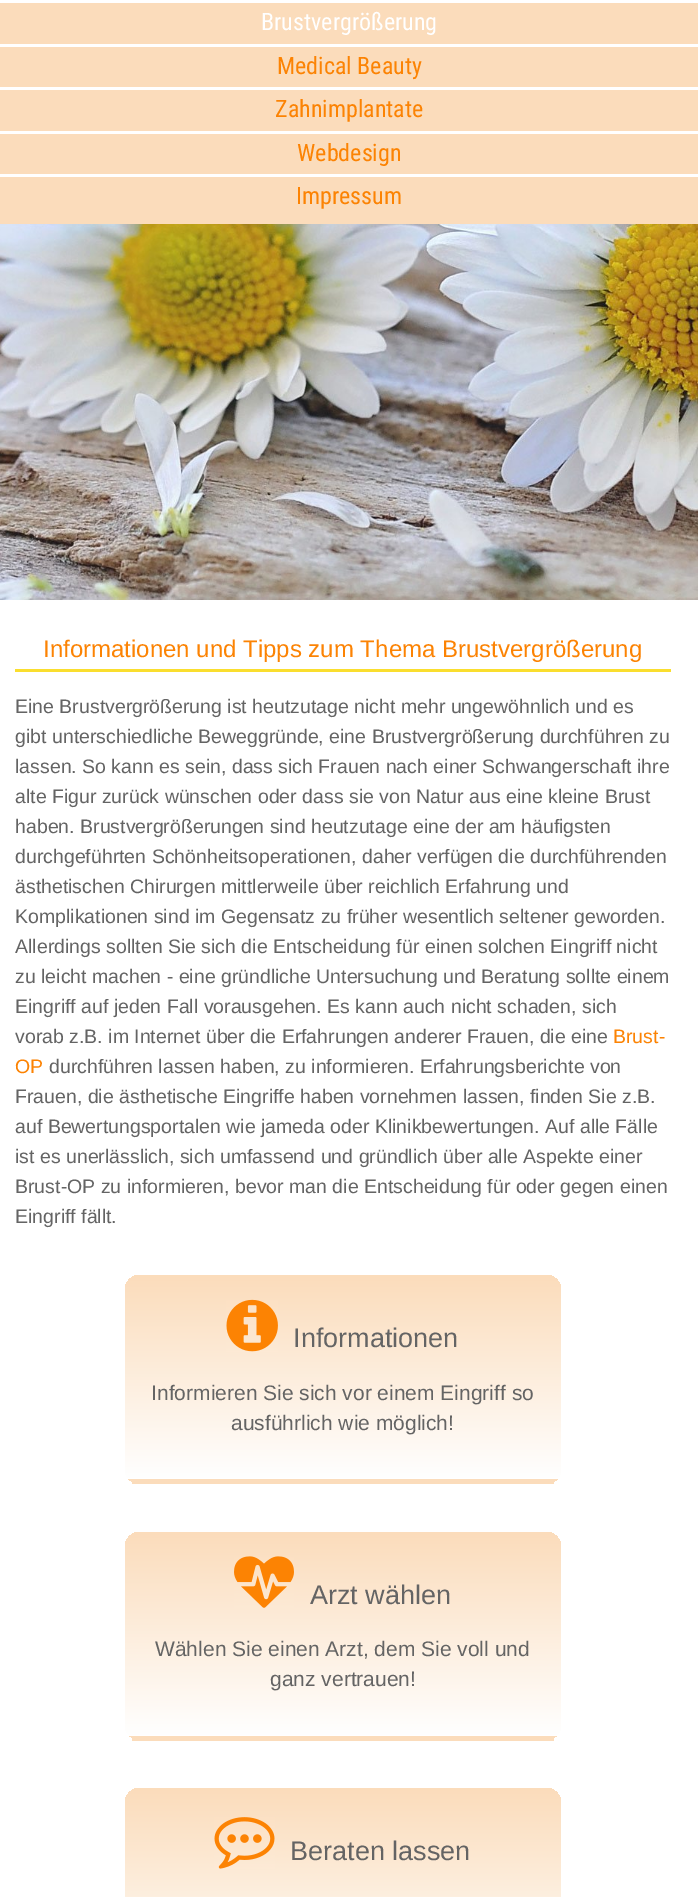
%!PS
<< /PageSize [698 1897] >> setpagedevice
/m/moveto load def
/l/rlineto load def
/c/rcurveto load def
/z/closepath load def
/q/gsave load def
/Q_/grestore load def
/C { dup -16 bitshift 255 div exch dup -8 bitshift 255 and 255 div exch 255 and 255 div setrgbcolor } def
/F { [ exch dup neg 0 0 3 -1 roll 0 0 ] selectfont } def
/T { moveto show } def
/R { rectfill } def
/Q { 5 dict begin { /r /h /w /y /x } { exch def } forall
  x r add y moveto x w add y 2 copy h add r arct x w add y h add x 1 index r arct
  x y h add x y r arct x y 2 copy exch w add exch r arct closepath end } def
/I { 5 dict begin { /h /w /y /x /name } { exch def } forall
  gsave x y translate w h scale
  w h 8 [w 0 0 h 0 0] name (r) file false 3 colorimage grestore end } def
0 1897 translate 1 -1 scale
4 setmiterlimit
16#FFFFFF C
0 0 698 1897 R
(1.rgb) 0 224 698 376 I
16#FBDCBB C
0 3 698 221 R
/RobotoCondensed-Regular 24 F
16#FFFFFF C
(Brustvergrößerung) 261 30 T
0 44 698 3 R
16#FC8303 C
(Medical Beauty) 277 74 T
16#FFFFFF C
0 87 698 3 R
16#FC8303 C
(Zahnimplantate) 275 117 T
16#FFFFFF C
0 131 698 3 R
16#FC8303 C
(Webdesign) 297 161 T
16#FFFFFF C
0 174 698 3 R
16#FC8303 C
(Impressum) 296 204 T
16#FADE2E C
15 669 656 3 R
/LiberationSans-Regular 24 F
16#FC8303 C
(Informationen und Tipps zum Thema Brustvergrößerung) 43 657 T
/LiberationSans-Regular 19.5 F
16#646464 C
(Eine Brustvergrößerung ist heutzutage nicht mehr ungewöhnlich und es) 15 713 T
(gibt unterschiedliche Beweggründe, eine Brustvergrößerung durchführen zu) 15 743 T
(lassen. So kann es sein, dass sich Frauen nach einer Schwangerschaft ihre) 15 773 T
(alte Figur zurück wünschen oder dass sie von Natur aus eine kleine Brust) 15 803 T
(haben. Brustvergrößerungen sind heutzutage eine der am häufigsten) 15 833 T
(durchgeführten Schönheitsoperationen, daher verfügen die durchführenden) 15 863 T
(ästhetischen Chirurgen mittlerweile über reichlich Erfahrung und) 15 893 T
(Komplikationen sind im Gegensatz zu früher wesentlich seltener geworden.) 15 923 T
(Allerdings sollten Sie sich die Entscheidung für einen solchen Eingriff nicht) 15 953 T
(zu leicht machen - eine gründliche Untersuchung und Beratung sollte einem) 15 983 T
(Eingriff auf jeden Fall vorausgehen. Es kann auch nicht schaden, sich) 15 1013 T
(vorab z.B. im Internet über die Erfahrungen anderer Frauen, die eine) 15 1043 T
16#FC8303 C
(Brust-) 613 1043 T
(OP) 15 1073 T
16#646464 C
(durchführen lassen haben, zu informieren. Erfahrungsberichte von) 49 1073 T
(Frauen, die ästhetische Eingriffe haben vornehmen lassen, finden Sie z.B.) 15 1103 T
(auf Bewertungsportalen wie jameda oder Klinikbewertungen. Auf alle Fälle) 15 1133 T
(ist es unerlässlich, sich umfassend und gründlich über alle Aspekte einer) 15 1163 T
(Brust-OP zu informieren, bevor man die Entscheidung für oder gegen einen) 15 1193 T
(Eingriff fällt.) 15 1223 T
q
125 1275 436 209 15 Q clip newpath
q 140 1275 m 406 0 l 8.5 0 15 6.5 15 15 c 0 189 l -436 0 l 0 -189 l 0 -8.5 6.5 -15 15 -15 c z clip newpath
<< /ShadingType 2 /ColorSpace /DeviceRGB /Coords [343 1275 343 1479] /Extend [true true] /Function << /FunctionType 2 /Domain [0 1] /C0 [.984 .863 .733] /C1 [1 1 1] /N 1 >> >> shfill Q_
q 125 1479 m 436 0 l 0 3 l -436 0 l z clip newpath
<< /ShadingType 2 /ColorSpace /DeviceRGB /Coords [343 1479 343 1683] /Extend [true true] /Function << /FunctionType 2 /Domain [0 1] /C0 [.984 .863 .733] /C1 [1 1 1] /N 1 >> >> shfill Q_
Q_
16#FBDCBB C
132 1481 422 3 R
(2.rgb) 226 1299 52 53 I
/LiberationSans-Regular 27 F
16#646464 C
(Informationen) 293 1347 T
/LiberationSans-Regular 21 F
(Informieren Sie sich vor einem Eingriff so) 151 1400 T
(ausführlich wie möglich!) 231 1430 T
q
125 1532 436 208 15 Q clip newpath
q 140 1532 m 406 0 l 8.5 0 15 6.5 15 15 c 0 189 l -436 0 l 0 -189 l 0 -8.5 6.5 -15 15 -15 c z clip newpath
<< /ShadingType 2 /ColorSpace /DeviceRGB /Coords [343 1532 343 1736] /Extend [true true] /Function << /FunctionType 2 /Domain [0 1] /C0 [.984 .863 .733] /C1 [1 1 1] /N 1 >> >> shfill Q_
q 125 1736 m 436 0 l 0 2 l -436 0 l z clip newpath
<< /ShadingType 2 /ColorSpace /DeviceRGB /Coords [343 1736 343 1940] /Extend [true true] /Function << /FunctionType 2 /Domain [0 1] /C0 [.984 .863 .733] /C1 [1 1 1] /N 1 >> >> shfill Q_
Q_
16#FBDCBB C
132 1737 422 4 R
(3.rgb) 234 1556 60 52 I
/LiberationSans-Regular 27 F
16#646464 C
(Arzt wählen) 310 1604 T
/LiberationSans-Regular 21 F
(Wählen Sie einen Arzt, dem Sie voll und) 155 1656 T
(ganz vertrauen!) 270 1686 T
q
125 1788 436 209 15 Q clip newpath
q 140 1788 m 406 0 l 8.5 0 15 6.5 15 15 c 0 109 l -436 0 l 0 -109 l 0 -8.5 6.5 -15 15 -15 c z clip newpath
<< /ShadingType 2 /ColorSpace /DeviceRGB /Coords [343 1788 343 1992] /Extend [true true] /Function << /FunctionType 2 /Domain [0 1] /C0 [.984 .863 .733] /C1 [1 1 1] /N 1 >> >> shfill Q_
Q_
(4.rgb) 214 1817 61 52 I
/LiberationSans-Regular 27 F
(Beraten lassen) 290 1860 T
showpage
